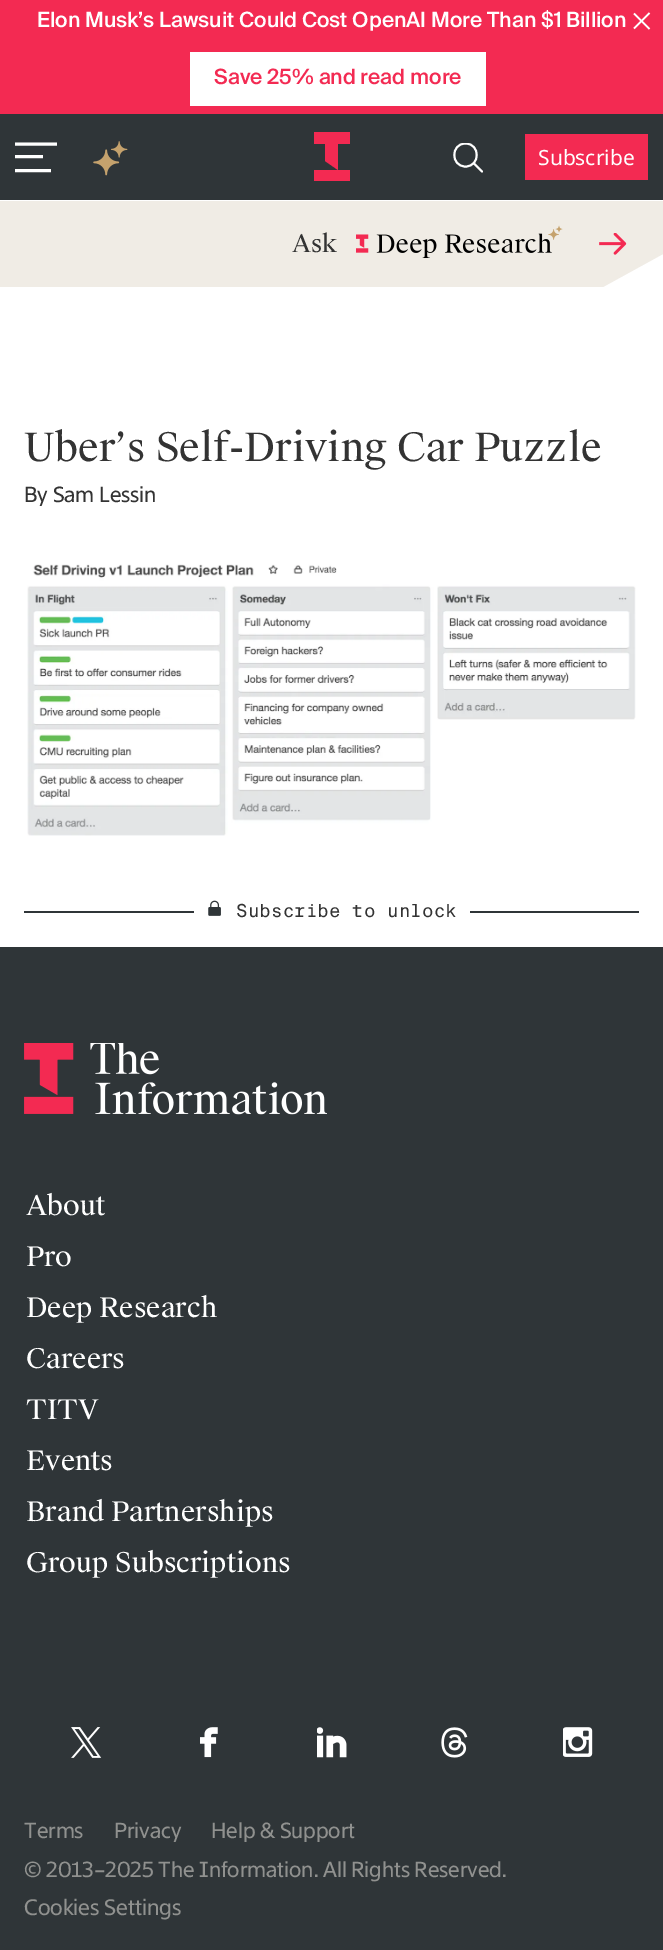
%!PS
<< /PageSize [663 1950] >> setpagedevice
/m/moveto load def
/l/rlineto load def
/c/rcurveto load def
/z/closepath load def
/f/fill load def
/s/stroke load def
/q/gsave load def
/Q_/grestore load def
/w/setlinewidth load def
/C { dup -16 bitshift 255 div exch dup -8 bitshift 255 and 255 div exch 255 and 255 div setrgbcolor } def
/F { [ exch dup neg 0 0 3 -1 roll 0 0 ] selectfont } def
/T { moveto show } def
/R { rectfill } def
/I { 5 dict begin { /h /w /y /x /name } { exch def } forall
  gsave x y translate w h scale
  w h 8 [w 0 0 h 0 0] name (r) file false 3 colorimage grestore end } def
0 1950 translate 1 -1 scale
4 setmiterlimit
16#FFFFFF C
0 0 663 1950 R
16#F32A52 C
0 0 663 114 R
/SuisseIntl-Medium 21 F
16#FFFFFF C
(Elon Musk’s Lawsuit Could Cost OpenAI More Than $1 Billion) 37 27 T
190 52 296 54 R
16#F32A52 C
(Save 25% and read more) 214 84 T
16#FFFFFF C
1.6 w
634 28.5 m 15.5 -15.5 l 649.5 29 m -15.5 -15.5 l s
16#2F3538 C
0 114 663 86 R
16#FFFFFF C
3.1 w
15 144 m 42 0 l 15 156.5 m 28 0 l 15 170.5 m 36 0 l s
(1.rgb) 93 141 35 35 I
16#F32A52 C
350 170 m -36 0 l 0 11 l 36 0 l z 325 144 m 0 17 l 13 9 l 0 -26 l 12 0 l 0 -12 l -36 0 l 0 12 l z f
q
453 143 30 30 rectclip
16#FFFFFF C
1.9 w
1 setlinecap
1 setlinejoin
474.5 164 m 7.5 7.5 l 465.5 166.5 m 15 0 15 -23 0 -23 c -15 0 -15 23 0 23 c z s
Q_
525 134 123 46 R
/NotoSans-Regular 21 F
16#FFFFFF C
(Subscribe) 538 165 T
16#F0ECE5 C
0 201 m 663 0 l 0 53 l -60 33 l -603 0 l z f
/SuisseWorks-Regular 24 F
16#333333 C
(Ask) 292 252 T
(2.rgb) 356 225 207 33 I
(3.rgb) 599 233 28 22 I
/SuisseWorks-Regular 39 F
(Uber’s Self-Driving Car Puzzle) 24 461 T
/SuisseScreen-Regular 21 F
(By Sam Lessin) 24 502 T
(4.rgb) 27 564 609 272 I
16#2F3538 C
24 911 615 2 R
16#FFFFFF C
194 911 276 2 R
(5.rgb) 208 900 13 16 I
/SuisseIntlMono-Regular 18 F
16#333333 C
(Subscribe to unlock) 236 917 T
16#2F3538 C
0 947 663 1003 R
(6.rgb) 24 1043 303 72 I
/SuisseWorks-Regular 27 F
16#FFFFFF C
(About) 26 1215 T
(Pro) 26 1266 T
(Deep Research) 26 1317 T
(Careers) 26 1368 T
(TITV) 26 1419 T
(Events) 26 1470 T
(Brand Partnerships) 26 1521 T
(Group Subscriptions) 26 1572 T
(7.rgb) 71 1727 31 31 I
(8.rgb) 200 1727 18 31 I
(9.rgb) 317 1727 30 31 I
(10.rgb) 441 1727 27 31 I
(11.rgb) 563 1727 30 30 I
/SuisseScreen-Regular 21 F
16#90918F C
(Terms) 24 1838 T
(Privacy) 114 1838 T
(Help & Support) 211 1838 T
(© 2013–2025 The Information. All Rights Reserved.) 24 1877 T
/SuisseScreen-Regular 21.5 F
(Cookies Settings) 24 1915 T
showpage
